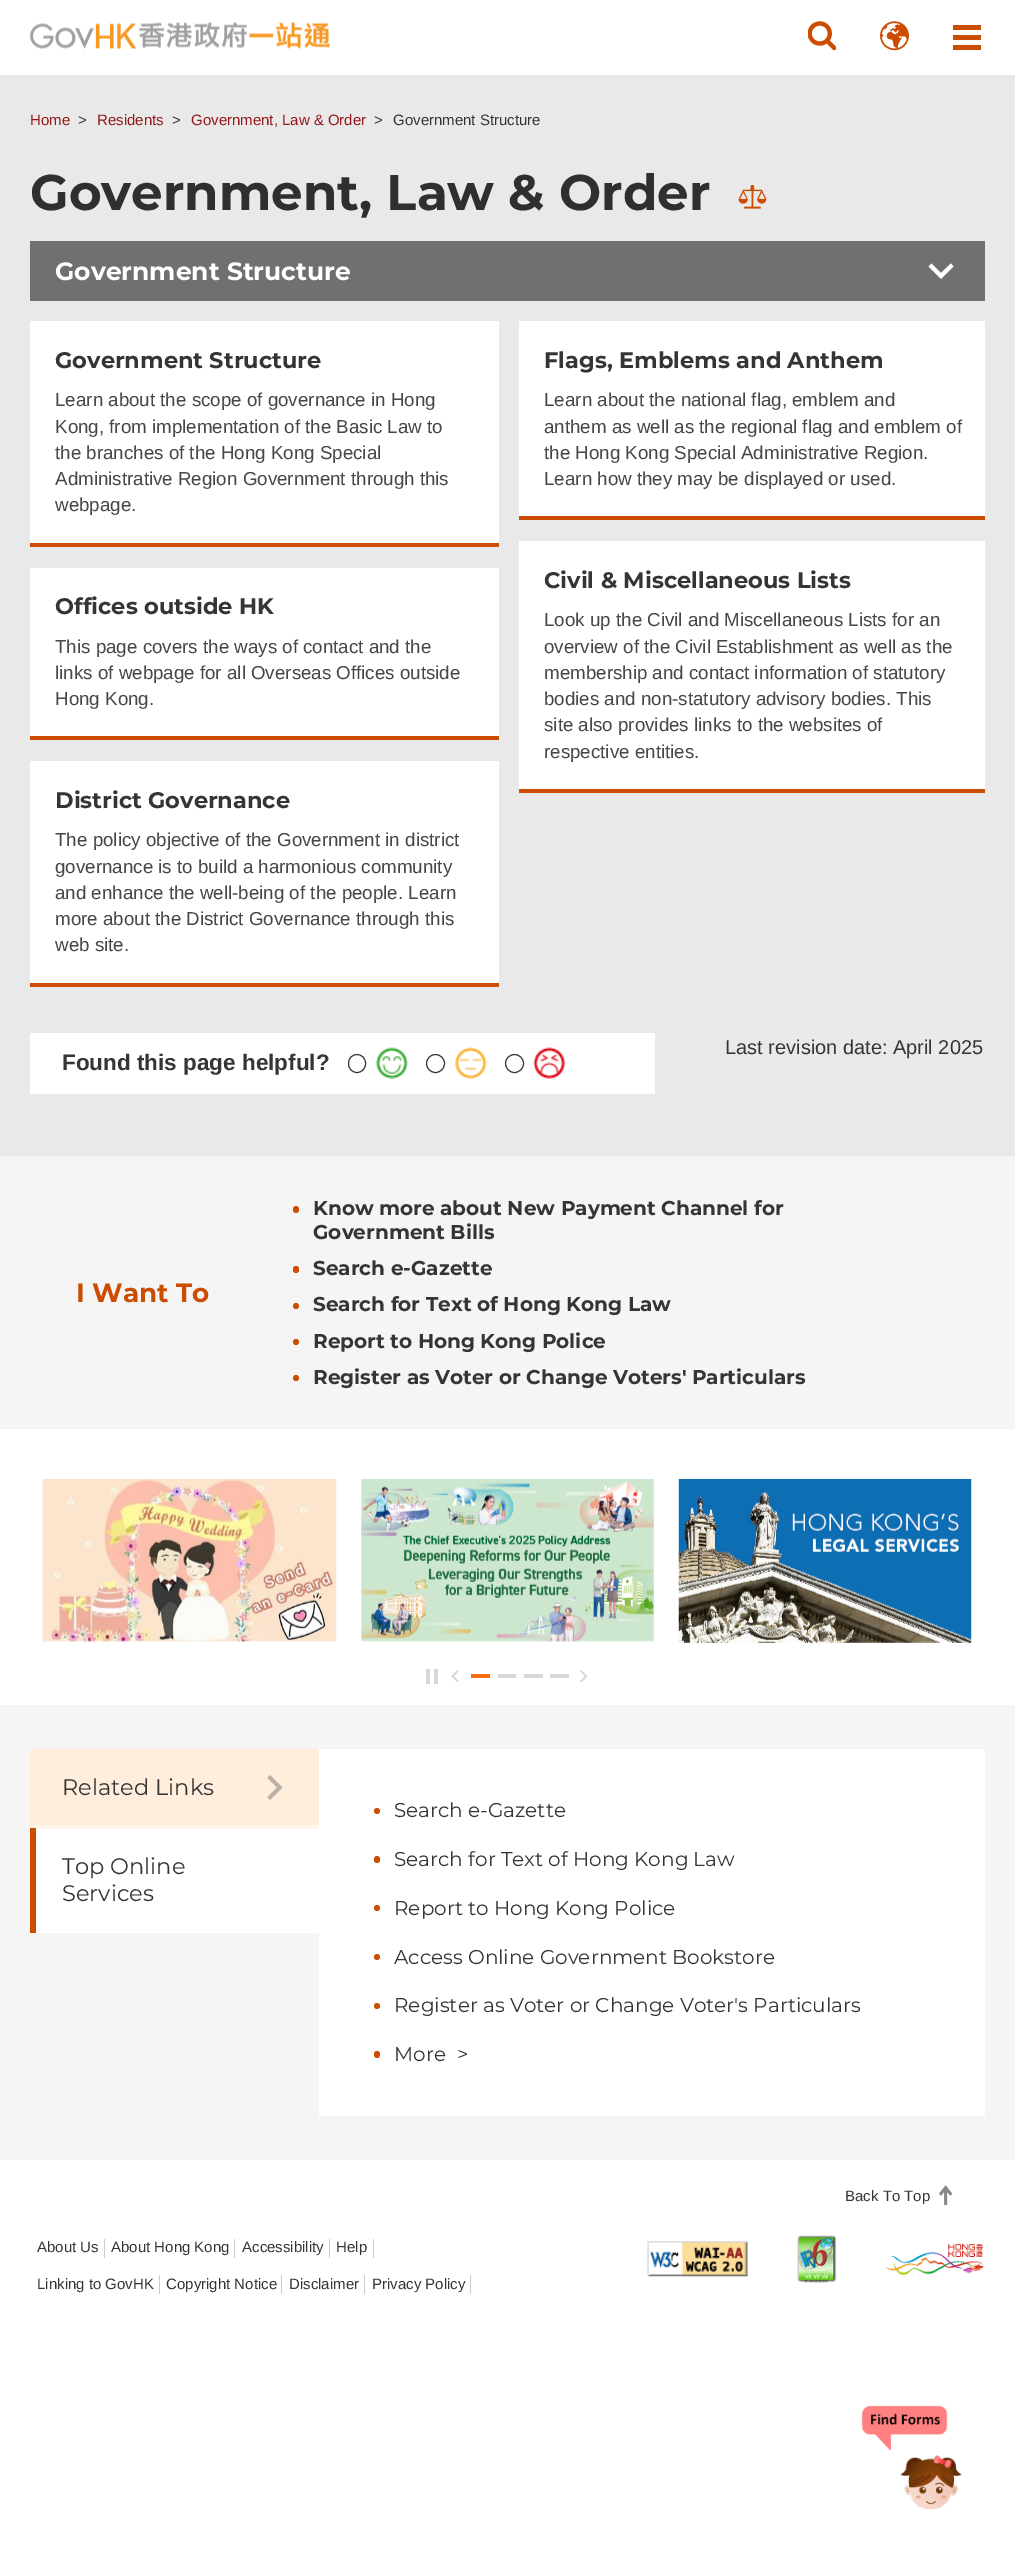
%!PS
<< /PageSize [1015 2551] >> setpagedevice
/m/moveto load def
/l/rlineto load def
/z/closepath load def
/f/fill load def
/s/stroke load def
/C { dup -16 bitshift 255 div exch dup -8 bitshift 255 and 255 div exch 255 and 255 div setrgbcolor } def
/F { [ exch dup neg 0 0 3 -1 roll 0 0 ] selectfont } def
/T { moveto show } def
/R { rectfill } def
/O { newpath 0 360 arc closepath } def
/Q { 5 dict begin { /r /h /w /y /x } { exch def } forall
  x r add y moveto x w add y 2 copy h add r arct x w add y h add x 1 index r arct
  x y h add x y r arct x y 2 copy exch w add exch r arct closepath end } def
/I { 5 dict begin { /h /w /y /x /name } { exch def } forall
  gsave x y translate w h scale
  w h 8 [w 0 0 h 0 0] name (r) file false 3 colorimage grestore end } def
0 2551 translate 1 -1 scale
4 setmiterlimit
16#FFFFFF C
0 0 1015 2551 R
(1.rgb) 30 22 300 27 I
(2.rgb) 808 21 28 30 I
(3.rgb) 880 21 29 30 I
16#CC4C02 C
953 25 28 5 R
953 35 28 5 R
953 45 28 5 R
16#E9E9E9 C
0 75 1015 1081 R
/LiberationSans-Regular 15 F
16#951717 C
(Home) 30 125 T
16#353535 C
(>) 78 125 T
16#951717 C
(Residents) 97 125 T
16#353535 C
(>) 172 125 T
16#951717 C
(Government, Law & Order) 191 125 T
16#353535 C
(>) 374 125 T
(Government Structure) 393 125 T
/Montserrat-Bold 50 F
16#2F2F2F C
(Government, Law & Order) 30 210 T
(4.rgb) 738 184 29 25 I
16#707070 C
30 241 955 60 R
/Montserrat-Bold 25 F
16#FFFFFF C
(Government Structure) 55 280 T
953.5 266.5 m -2.5 -3 l -10 9.5 l -9.5 -9.5 l -3 3 l 12.5 12.5 l z f
30 321 469 222 R
16#CC4C02 C
30 543 469 4 R
/Montserrat-Bold 22.5 F
16#353535 C
(Government Structure) 55 368 T
/LiberationSans-Regular 18.75 F
16#474747 C
(Learn about the scope of governance in Hong) 55 406 T
(Kong, from implementation of the Basic Law to) 55 433 T
(the branches of the Hong Kong Special) 55 459 T
(Administrative Region Government through this) 55 485 T
(webpage.) 55 511 T
16#FFFFFF C
519 321 466 195 R
16#CC4C02 C
519 516 466 4 R
/Montserrat-Bold 22.5 F
16#353535 C
(Flags, Emblems and Anthem) 544 368 T
/LiberationSans-Regular 18.75 F
16#474747 C
(Learn about the national flag, emblem and) 544 406 T
(anthem as well as the regional flag and emblem of) 544 433 T
(the Hong Kong Special Administrative Region.) 544 459 T
(Learn how they may be displayed or used.) 544 485 T
16#FFFFFF C
30 568 469 168 R
16#CC4C02 C
30 736 469 4 R
/Montserrat-Bold 22.5 F
16#353535 C
(Offices outside HK) 55 614 T
/LiberationSans-Regular 18.75 F
16#474747 C
(This page covers the ways of contact and the) 55 653 T
(links of webpage for all Overseas Offices outside) 55 679 T
(Hong Kong.) 55 705 T
16#FFFFFF C
519 541 466 248 R
16#CC4C02 C
519 789 466 4 R
/Montserrat-Bold 22.5 F
16#353535 C
(Civil & Miscellaneous Lists) 544 588 T
/LiberationSans-Regular 18.75 F
16#474747 C
(Look up the Civil and Miscellaneous Lists for an) 544 626 T
(overview of the Civil Establishment as well as the) 544 653 T
(membership and contact information of statutory) 544 679 T
(bodies and non-statutory advisory bodies. This) 544 705 T
(site also provides links to the websites of) 544 731 T
(respective entities.) 544 758 T
16#FFFFFF C
30 761 469 222 R
16#CC4C02 C
30 983 469 4 R
/Montserrat-Bold 22.5 F
16#353535 C
(District Governance) 55 808 T
/LiberationSans-Regular 18.75 F
16#474747 C
(The policy objective of the Government in district) 55 846 T
(governance is to build a harmonious community) 55 873 T
(and enhance the well-being of the people. Learn) 55 899 T
(more about the District Governance through this) 55 925 T
(web site.) 55 951 T
/LiberationSans-Regular 20 F
16#353535 C
(Last revision date: April 2025) 725 1054 T
16#FFFFFF C
30 1033 625 61 R
/LiberationSans-Bold 22.5 F
16#353535 C
(Found this page helpful?) 62 1070 T
348.5 1054.5 17 18 8.5 Q s
(5.rgb) 376 1047 32 32 I
435.5 1063.5 9 O s
(6.rgb) 455 1047 32 32 I
514.5 1063.5 9 O s
(7.rgb) 533 1047 32 32 I
16#F5F5F5 C
0 1156 1015 273 R
/Montserrat-Bold 26.25 F
16#CC4C02 C
(I Want To) 76 1302 T
293 1206 6 7 3 Q f
/Montserrat-Bold 20 F
16#353535 C
(Know more about New Payment Channel for) 313 1215 T
(Government Bills) 313 1239 T
16#CC4C02 C
293 1266 6 7 3 Q f
16#353535 C
(Search e-Gazette) 313 1275 T
16#CC4C02 C
296 1306 3 O f
16#353535 C
(Search for Text of Hong Kong Law) 313 1311 T
16#CC4C02 C
296 1342 3 O f
16#353535 C
(Report to Hong Kong Police) 313 1348 T
16#CC4C02 C
296 1378 3 O f
16#353535 C
(Register as Voter or Change Voters' Particulars) 313 1384 T
(8.rgb) 42 1479 295 163 I
(9.rgb) 361 1479 293 163 I
(10.rgb) 678 1479 294 164 I
16#D7D7D7 C
426 1669 4 15 R
434 1669 4 15 R
(11.rgb) 451 1670 8 13 I
16#F76E12 C
471 1674 19 4 R
16#D7D7D7 C
498 1674 18 4 R
524 1674 19 4 R
550 1674 19 4 R
(12.rgb) 580 1670 8 13 I
16#F5F5F5 C
0 1705 1015 455 R
16#FFEEDC C
30 1749 289 79 R
16#FFFFFF C
30 1826 289 1 R
/Montserrat-Regular 22.5 F
16#353535 C
(Related Links) 62 1795 T
16#B9B0A7 C
270 1775 m -2.5 3 l 9.5 9.5 l -9.5 9.5 l 2.5 3 l 12.5 -12.5 l z f
16#FFFFFF C
36 1828 283 105 R
16#CC4C02 C
30 1828 6 105 R
16#353535 C
(Top Online) 62 1874 T
(Services) 62 1901 T
16#FFFFFF C
319 1749 666 367 R
16#CC4C02 C
377 1811 3 O f
/Montserrat-Regular 20 F
16#353535 C
(Search e-Gazette) 394 1817 T
16#CC4C02 C
374 1856 6 7 3 Q f
16#353535 C
(Search for Text of Hong Kong Law) 394 1866 T
16#CC4C02 C
377 1908 3 O f
16#353535 C
(Report to Hong Kong Police) 394 1915 T
16#CC4C02 C
377 1957 3 O f
16#353535 C
(Access Online Government Bookstore) 394 1964 T
16#CC4C02 C
377 2006 3 O f
16#353535 C
(Register as Voter or Change Voter's Particulars) 394 2012 T
16#CC4C02 C
374 2051 6 7 3 Q f
16#353535 C
(More) 394 2061 T
(>) 457 2061 T
/LiberationSans-Regular 15 F
(Back To Top) 845 2201 T
(13.rgb) 939 2185 14 20 I
(About Us) 37 2252 T
16#CCCCCC C
104 2239 1 19 R
16#353535 C
(About Hong Kong) 111 2252 T
16#CCCCCC C
234 2239 1 19 R
16#353535 C
(Accessibility) 242 2252 T
16#CCCCCC C
329 2239 1 19 R
16#353535 C
(Help) 336 2252 T
16#CCCCCC C
373 2239 1 19 R
16#353535 C
(Linking to GovHK) 37 2289 T
16#CCCCCC C
159 2275 1 19 R
16#353535 C
(Copyright Notice) 166 2289 T
16#CCCCCC C
281 2275 1 19 R
16#353535 C
(Disclaimer) 289 2289 T
16#CCCCCC C
364 2275 1 19 R
16#353535 C
(Privacy Policy) 372 2289 T
16#CCCCCC C
470 2275 1 19 R
(14.rgb) 647 2241 101 36 I
(15.rgb) 796 2235 41 48 I
(16.rgb) 886 2243 98 33 I
(17.rgb) 861 2405 101 105 I
showpage
